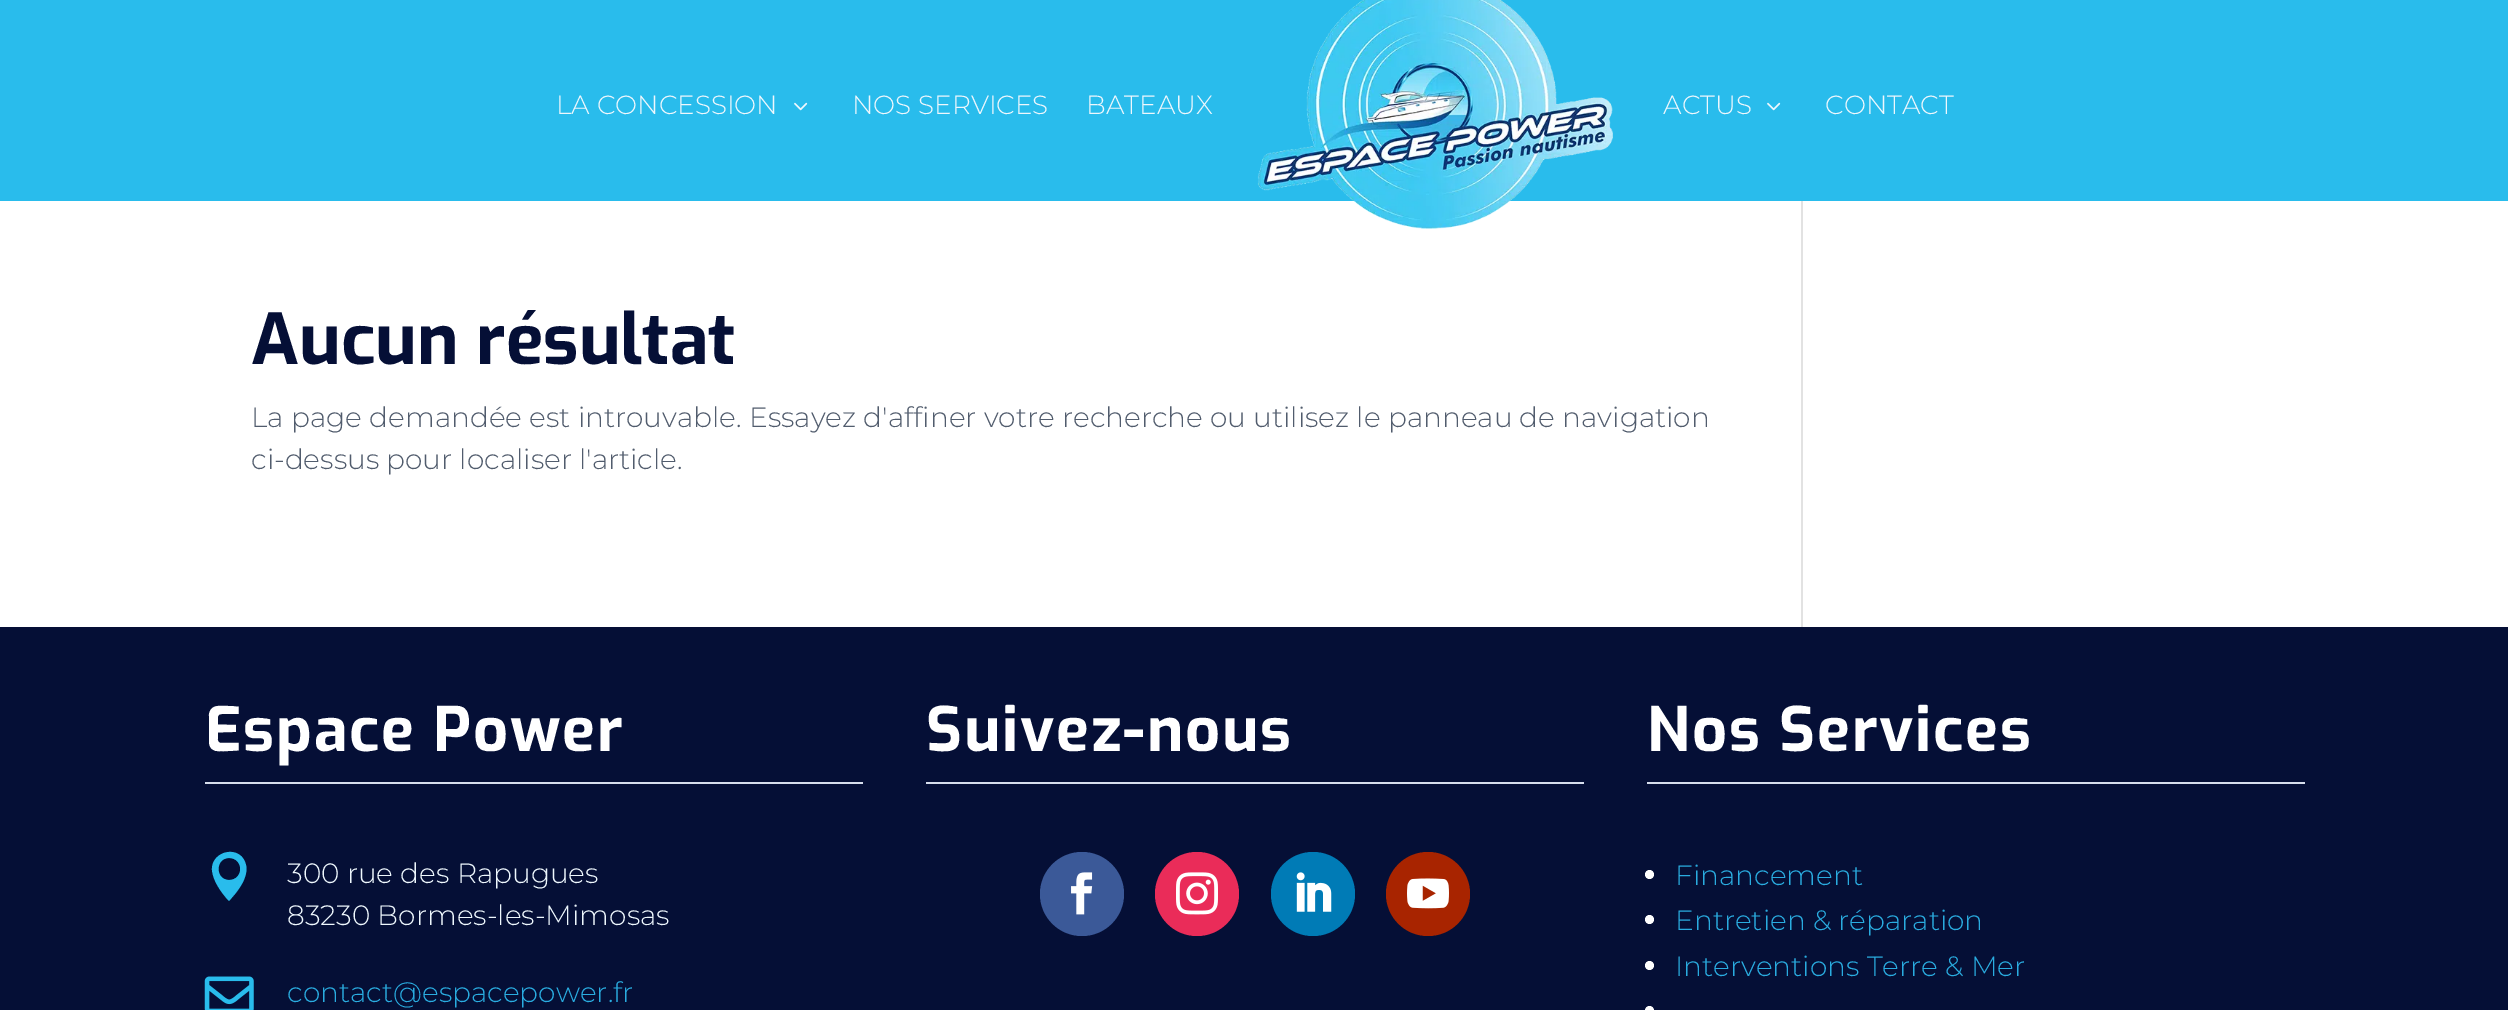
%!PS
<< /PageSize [2508 1010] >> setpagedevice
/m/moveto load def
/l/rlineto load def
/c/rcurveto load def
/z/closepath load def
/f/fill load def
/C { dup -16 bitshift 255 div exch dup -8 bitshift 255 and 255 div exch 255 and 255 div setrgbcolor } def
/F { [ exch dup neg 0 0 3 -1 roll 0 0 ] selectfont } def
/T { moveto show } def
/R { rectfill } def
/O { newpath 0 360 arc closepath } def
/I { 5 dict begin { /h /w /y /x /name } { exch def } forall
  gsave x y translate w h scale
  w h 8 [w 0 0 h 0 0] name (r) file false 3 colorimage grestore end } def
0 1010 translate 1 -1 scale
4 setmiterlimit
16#FFFFFF C
0 0 2508 1010 R
16#29BCEC C
0 0 2508 201 R
/Montserrat-Light 26.25 F
16#EEF7FD C
(LA CONCESSION) 556 114 T
(1.rgb) 794 102 14 9 I
(NOS SERVICES) 852 114 T
(BATEAUX) 1086 114 T
(2.rgb) 1257 0 356 229 I
(ACTUS) 1663 114 T
(1.rgb) 1767 102 14 9 I
(CONTACT) 1825 114 T
/Exo-Bold 70 F
16#050F36 C
(Aucun résultat) 251 364 T
/Montserrat-Light 28 F
16#515C6D C
(La page demandée est introuvable. Essayez d'affiner votre recherche ou utilisez le panneau de navigation) 251 427 T
(ci-dessus pour localiser l'article.) 251 469 T
16#E2E2E2 C
1801 201 2 426 R
16#050F36 C
0 627 2508 383 R
/Exo-Bold 61.25 F
16#FFFFFF C
205 751 m 1.75 0 (Espace Power) ashow
16#D7DEED C
205 782 658 2 R
16#29BCEC C
228 900 m 1 1 l 6 -7 l 8 -10 17 -25 7 -37 c -10 -11 -31 -3 -30 13 c 1 11 9 22 16 30 c z 229 858 m 15 0 15 22 0 22 c -14 0 -14 -22 0 -22 c z f
/Montserrat-Light 28 F
16#EEF7FD C
(300 rue des Rapugues) 287 883 T
(83230 Bormes-les-Mimosas) 287 925 T
(3.rgb) 204 976 50 34 I
16#2AACE0 C
(contact@espacepower.fr) 287 1002 T
/Exo-Bold 61.25 F
16#FFFFFF C
926 751 m 1.75 0 (Suivez-nous) ashow
16#D7DEED C
926 782 658 2 R
16#3B5998 C
1082 894 42 O f
(4.rgb) 1071 872 22 43 I
16#EA2C59 C
1197 894 42 O f
(5.rgb) 1176 872 42 43 I
16#007BB6 C
1313 894 42 O f
(6.rgb) 1296 872 36 40 I
16#A82400 C
1428 894 42 O f
(7.rgb) 1407 878 42 31 I
16#FFFFFF C
1647 751 m 1.75 0 (Nos Services) ashow
16#D7DEED C
1647 782 658 2 R
16#FFFFFF C
1649.5 874.5 4.5 O f
/Montserrat-Light 28 F
16#2AACE0 C
(Financement) 1675 885 T
16#FFFFFF C
1649.5 919.5 4.5 O f
16#2AACE0 C
(Entretien & réparation) 1675 930 T
16#FFFFFF C
1649.5 965.5 4.5 O f
16#2AACE0 C
(Interventions Terre & Mer) 1675 976 T
16#FFFFFF C
1649.5 1010.5 4.5 O f
showpage
